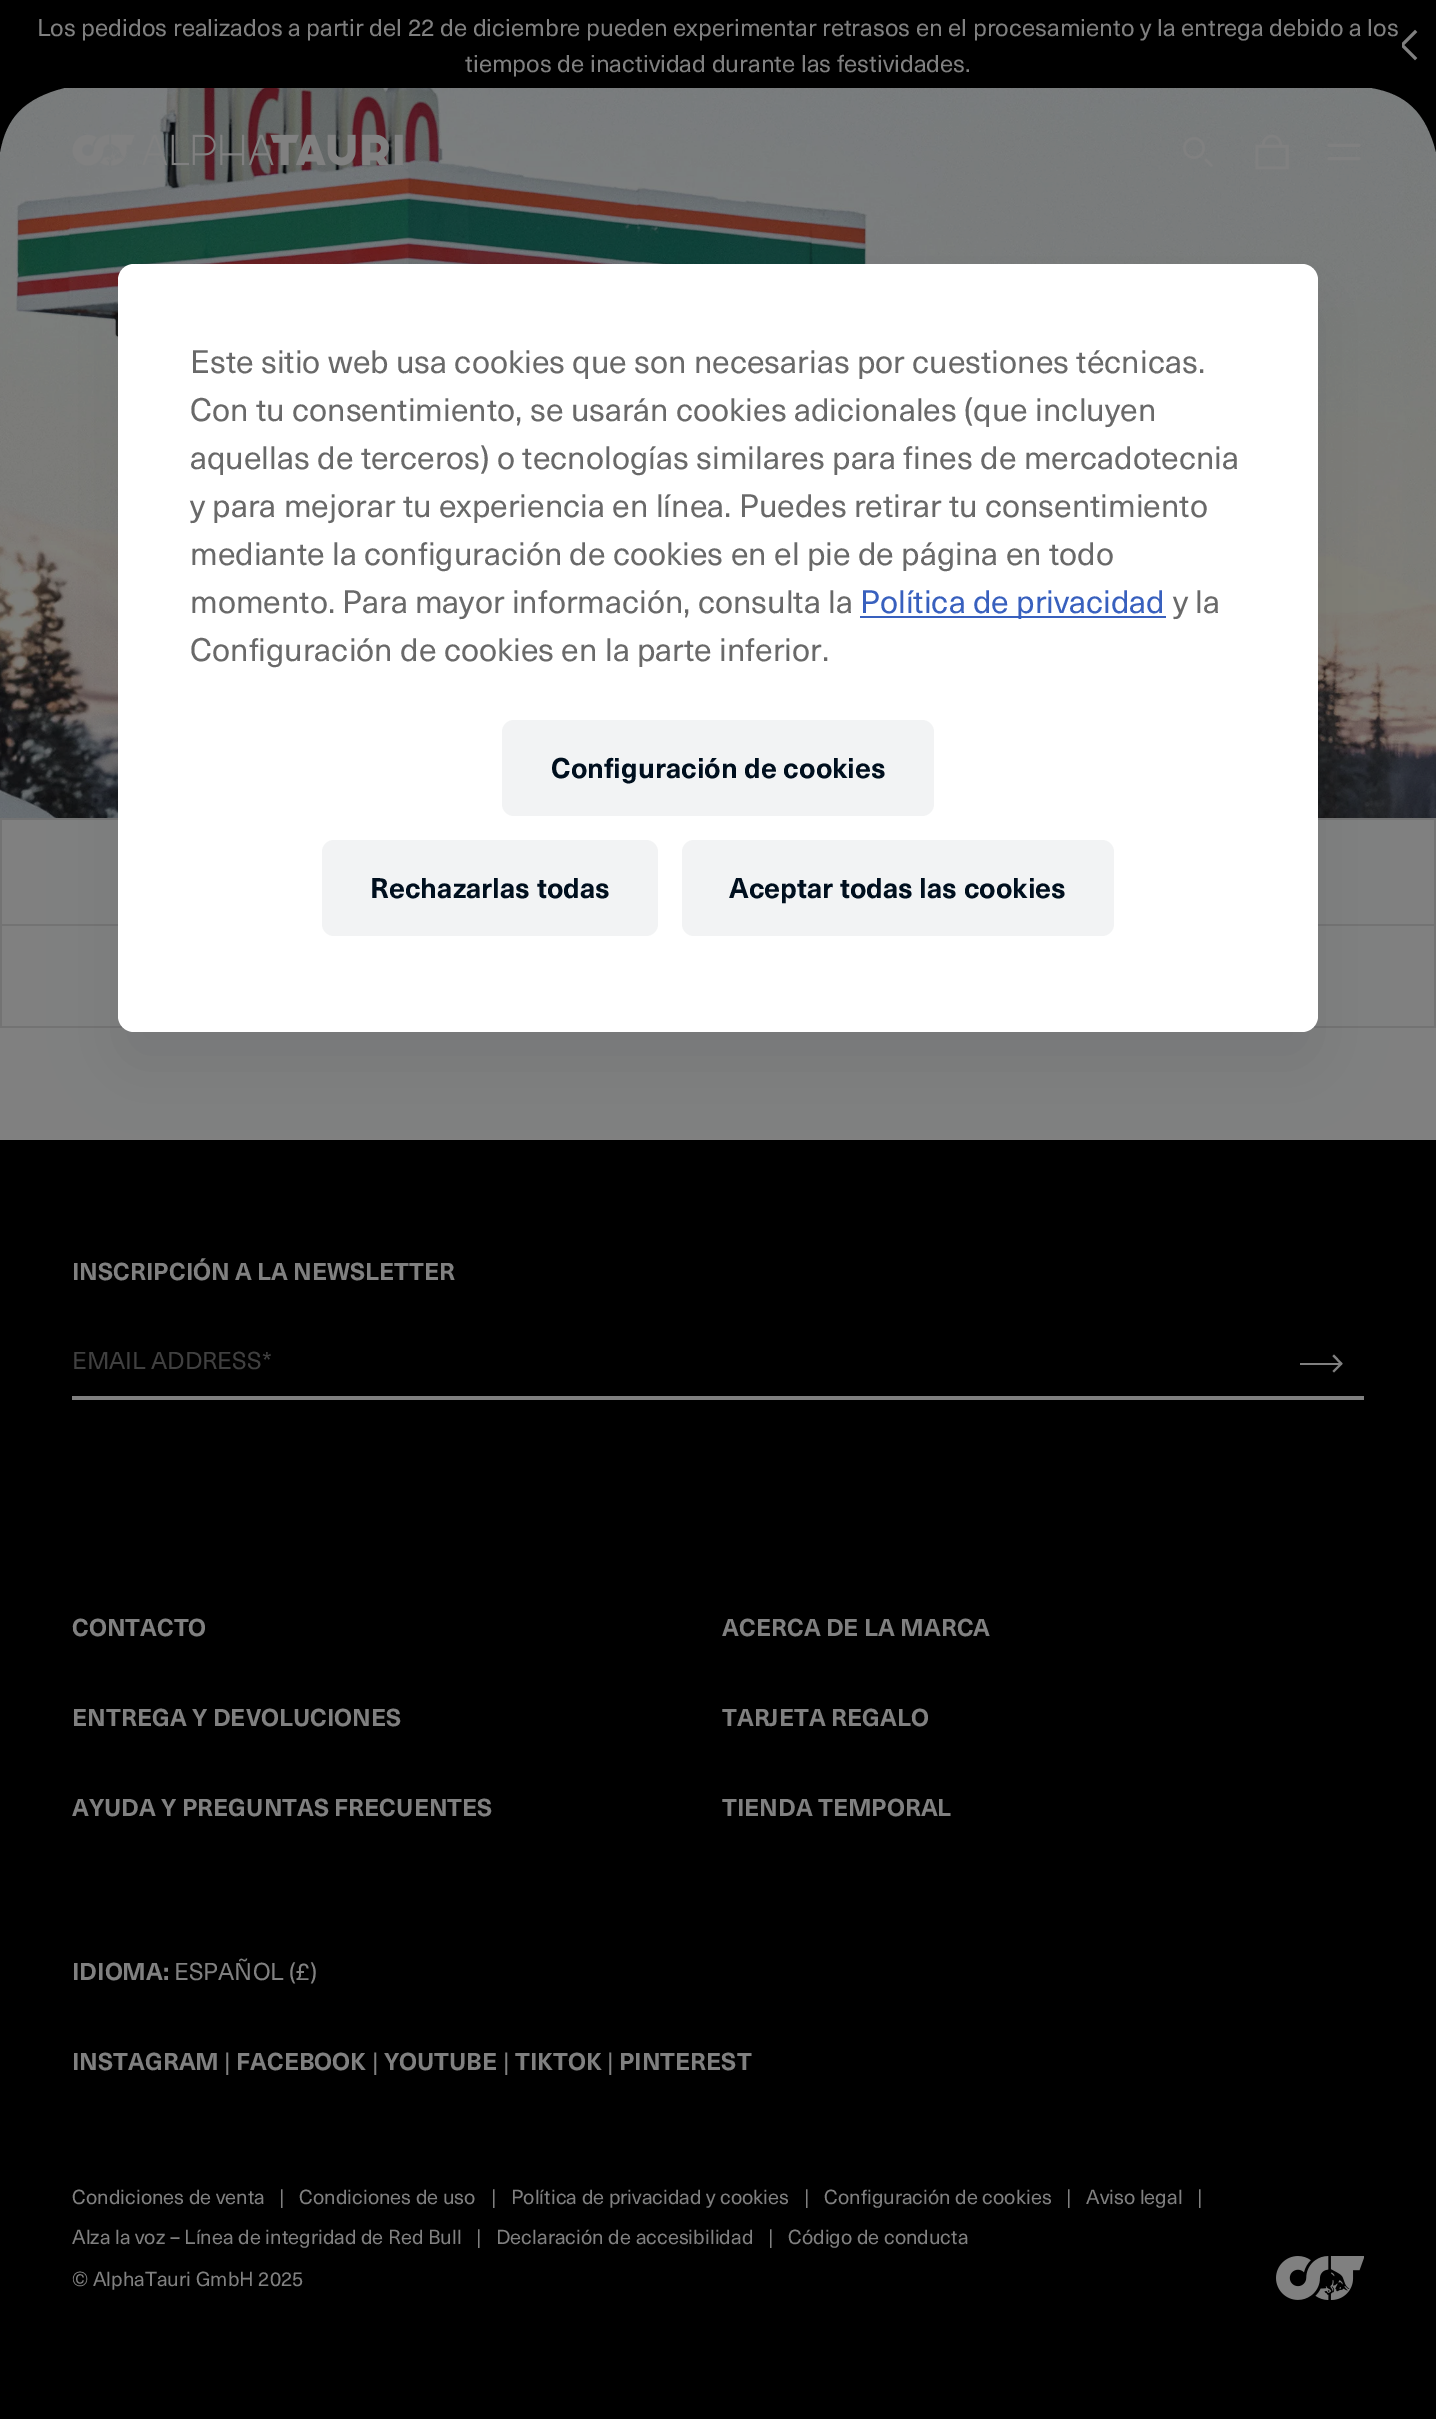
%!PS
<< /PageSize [1436 2419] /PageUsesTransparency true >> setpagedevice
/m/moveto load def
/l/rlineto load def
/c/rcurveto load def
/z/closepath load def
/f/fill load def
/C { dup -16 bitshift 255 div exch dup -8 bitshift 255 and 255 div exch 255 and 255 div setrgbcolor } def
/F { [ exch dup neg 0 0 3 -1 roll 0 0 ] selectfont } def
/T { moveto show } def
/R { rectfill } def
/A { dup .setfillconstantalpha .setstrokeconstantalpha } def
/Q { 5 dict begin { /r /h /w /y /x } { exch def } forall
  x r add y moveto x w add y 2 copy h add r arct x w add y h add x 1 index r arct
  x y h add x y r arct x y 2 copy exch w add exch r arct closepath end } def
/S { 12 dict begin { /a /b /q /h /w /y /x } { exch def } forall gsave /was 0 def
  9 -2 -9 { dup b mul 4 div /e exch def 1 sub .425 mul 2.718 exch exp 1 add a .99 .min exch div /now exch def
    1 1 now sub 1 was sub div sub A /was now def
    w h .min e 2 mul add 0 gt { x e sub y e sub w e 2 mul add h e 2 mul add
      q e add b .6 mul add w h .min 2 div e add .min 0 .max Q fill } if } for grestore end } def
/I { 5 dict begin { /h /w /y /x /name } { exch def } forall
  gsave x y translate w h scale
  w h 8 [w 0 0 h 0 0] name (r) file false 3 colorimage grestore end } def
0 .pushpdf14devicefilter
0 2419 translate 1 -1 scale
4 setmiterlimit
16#808080 C
0 0 1436 2419 R
16#000000 C
0 0 1436 88 R
/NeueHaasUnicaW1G-Regular 24 F
16#808080 C
(Los pedidos realizados a partir del 22 de diciembre pueden experimentar retrasos en el procesamiento y la entrega debido a los) 37 36 T
(tiempos de inactividad durante las festividades.) 465 72 T
(1.rgb) 1402 29 16 32 I
(6.rgb) 0 88 1436 730 I
16#000000 C
0 88 m 0 64 l 6 -34 24 -54 64 -64 c z f
1372 88 m 34 6 54 24 64 64 c 0 -64 l z f
(2.rgb) 72 134 331 32 I
(3.rgb) 1183 137 30 30 I
(4.rgb) 1255 134 34 36 I
(5.rgb) 1327 143 34 18 I
16#737373 C
0 818 1436 210 R
16#808080 C
2 820 1432 104 R
2 926 1432 100 R
16#000000 C
0 1140 1436 1279 R
16#000F1E C
118 296 1200 768 16 32 .08 S
16#FFFFFF C
118 264 1200 768 16 Q f
/NeueHaasUnicaW1G-Regular 32 F
16#696969 C
(Este sitio web usa cookies que son necesarias por cuestiones técnicas.) 190 373 T
(Con tu consentimiento, se usarán cookies adicionales \(que incluyen) 190 421 T
(aquellas de terceros\) o tecnologías similares para fines de mercadotecnia) 190 469 T
(y para mejorar tu experiencia en línea. Puedes retirar tu consentimiento) 190 517 T
(mediante la configuración de cookies en el pie de página en todo) 190 565 T
(momento. Para mayor información, consulta la) 190 613 T
16#3860BE C
860 616 306 2 R
(Política de privacidad) 860 613 T
16#696969 C
(y la) 1173 613 T
(Configuración de cookies en la parte inferior.) 190 661 T
16#F2F3F4 C
502 720 432 96 12 Q f
/NeueHaasUnicaW1G-Bold 28 F
16#000F1E C
(Configuración de cookies) 551 778 T
16#F2F3F4 C
322 840 336 96 12 Q f
16#000F1E C
(Rechazarlas todas) 370 898 T
16#F2F3F4 C
682 840 432 96 12 Q f
16#000F1E C
(Aceptar todas las cookies) 729 898 T
/NeueHaasUnicaW1G-Bold 24 F
16#808080 C
(INSCRIPCIÓN A LA NEWSLETTER) 72 1280 T
72 1396 1292 4 R
/NeueHaasUnicaW1G-Regular 24 F
16#404040 C
(EMAIL ADDRESS*) 72 1369 T
16#808080 C
1300 1363 42 2 R
1334 1354.5 m 8.5 9 l -1.5 1.5 l -8.5 -9 l z f
1332.5 1371 m 8.5 -8.5 l 1.5 1.5 l -8.5 8.5 l z f
/NeueHaasUnicaW1G-Bold 24 F
(CONTACTO) 72 1636 T
(ENTREGA Y DEVOLUCIONES) 72 1726 T
(AYUDA Y PREGUNTAS FRECUENTES) 72 1816 T
(ACERCA DE LA MARCA) 722 1636 T
(TARJETA REGALO) 722 1726 T
(TIENDA TEMPORAL) 722 1816 T
(IDIOMA:) 72 1980 T
/NeueHaasUnicaW1G-Regular 24 F
(ESPAÑOL \(£\)) 174 1980 T
/NeueHaasUnicaW1G-Bold 24 F
(INSTAGRAM) 72 2070 T
/NeueHaasUnicaW1G-Regular 24 F
(|) 224 2070 T
/NeueHaasUnicaW1G-Bold 24 F
(FACEBOOK) 236 2070 T
/NeueHaasUnicaW1G-Regular 24 F
(|) 372 2070 T
/NeueHaasUnicaW1G-Bold 24 F
(YOUTUBE) 384 2070 T
/NeueHaasUnicaW1G-Regular 24 F
(|) 503 2070 T
/NeueHaasUnicaW1G-Bold 24 F
(TIKTOK) 515 2070 T
/NeueHaasUnicaW1G-Regular 24 F
(|) 607 2070 T
/NeueHaasUnicaW1G-Bold 24 F
(PINTEREST) 619 2070 T
/NeueHaasUnicaW1G-Regular 20 F
(Condiciones de venta) 72 2204 T
(|) 279 2204 T
(Condiciones de uso) 299 2204 T
(|) 491 2204 T
(Política de privacidad y cookies) 511 2204 T
(|) 804 2204 T
(Configuración de cookies) 824 2204 T
(|) 1066 2204 T
(Aviso legal) 1086 2204 T
(|) 1197 2204 T
(Alza la voz – Línea de integridad de Red Bull) 72 2244 T
(|) 476 2244 T
(Declaración de accesibilidad) 496 2244 T
(|) 768 2244 T
(Código de conducta) 788 2244 T
(© AlphaTauri GmbH 2025) 72 2286 T
(7.rgb) 1276 2256 88 44 I
.poppdf14devicefilter showpage
